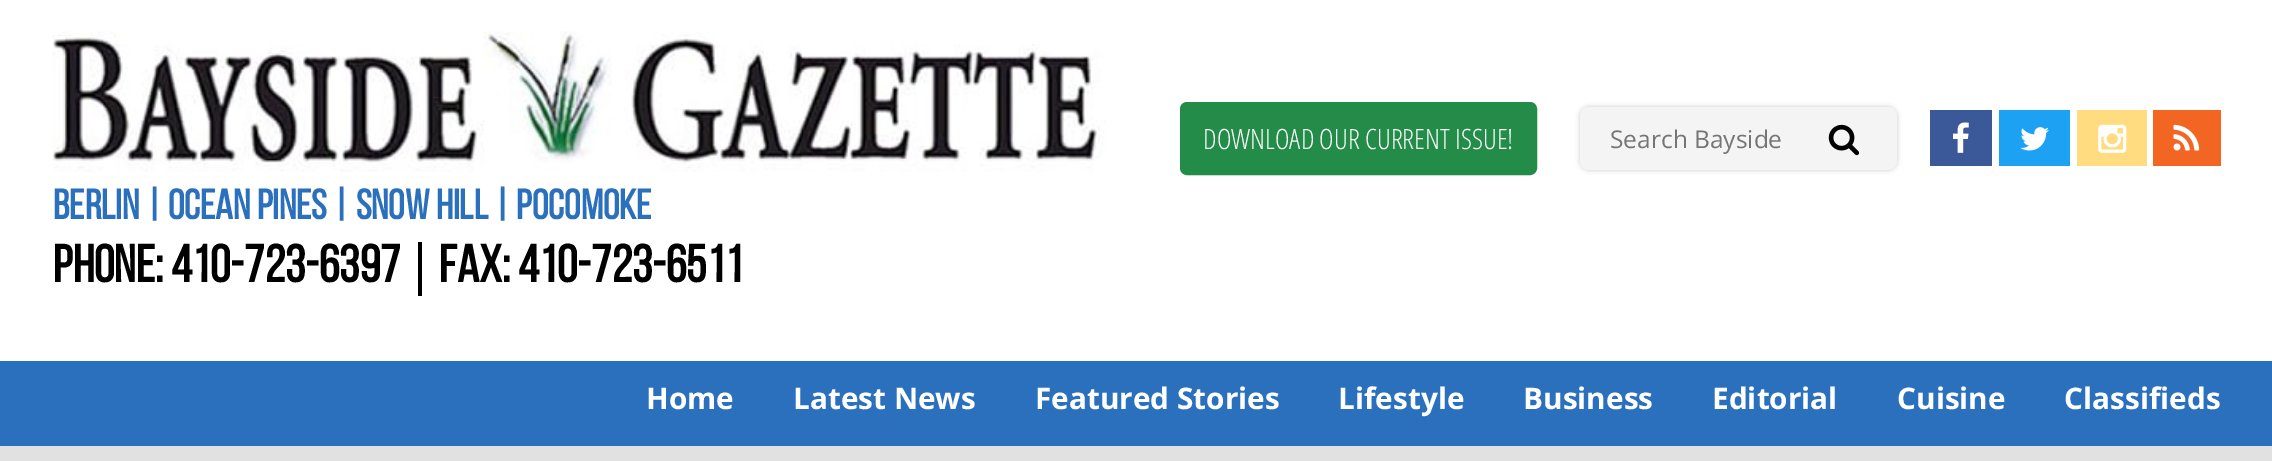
%!PS
<< /PageSize [2272 461] /PageUsesTransparency true >> setpagedevice
/f/fill load def
/s/stroke load def
/q/gsave load def
/Q_/grestore load def
/w/setlinewidth load def
/C { dup -16 bitshift 255 div exch dup -8 bitshift 255 and 255 div exch 255 and 255 div setrgbcolor } def
/F { [ exch dup neg 0 0 3 -1 roll 0 0 ] selectfont } def
/T { moveto show } def
/R { rectfill } def
/A { dup .setfillconstantalpha .setstrokeconstantalpha } def
/Q { 5 dict begin { /r /h /w /y /x } { exch def } forall
  x r add y moveto x w add y 2 copy h add r arct x w add y h add x 1 index r arct
  x y h add x y r arct x y 2 copy exch w add exch r arct closepath end } def
/S { 12 dict begin { /a /b /q /h /w /y /x } { exch def } forall gsave /was 0 def
  9 -2 -9 { dup b mul 4 div /e exch def 1 sub .425 mul 2.718 exch exp 1 add a .99 .min exch div /now exch def
    1 1 now sub 1 was sub div sub A /was now def
    w h .min e 2 mul add 0 gt { x e sub y e sub w e 2 mul add h e 2 mul add
      q e add b .6 mul add w h .min 2 div e add .min 0 .max Q fill } if } for grestore end } def
/I { 5 dict begin { /h /w /y /x /name } { exch def } forall
  gsave x y translate w h scale
  w h 8 [w 0 0 h 0 0] name (r) file false 3 colorimage grestore end } def
0 .pushpdf14devicefilter
0 461 translate 1 -1 scale
4 setmiterlimit
16#E1E1E1 C
0 0 2272 461 R
16#FFFFFF C
0 0 2272 361 R
16#238C49 C
1181 103 355 71 6 Q q f Q_
2 w
s
/OpenSansCondensed-Light 28 F
16#FFFFFF C
(DOWNLOAD OUR CURRENT ISSUE!) 1203 149 T
16#000000 C
1580 107 317 63 9 2.5 .2 S
16#F4F4F4 C
1580 107 317 63 9 Q f
/OpenSans-Regular 24.5 F
16#757575 C
(Search Bayside) 1610 148 T
(1.rgb) 1828 124 32 32 I
16#3B5998 C
1930 110 62 56 R
(2.rgb) 1953 122 16 31 I
16#1DA1F2 C
1999 110 71 56 R
(3.rgb) 2020 127 29 24 I
16#FFDC80 C
2077 110 70 56 R
(4.rgb) 2098 124 29 29 I
16#F26522 C
2153 110 68 56 R
(5.rgb) 2173 124 27 27 I
(6.rgb) 52 31 1054 141 I
/BebasNeue-Bold 42 F
16#2B70BD C
(BERLIN | OCEAN PINES | SNOW HILL | POCOMOKE) 53 219 T
/BebasNeue-Bold 52.5 F
16#000000 C
(PHONE: 410-723-6397) 53 282 T
418 242 4 54 R
(FAX: 410-723-6511) 439 282 T
16#2B70BD C
0 361 2272 85 R
/OpenSans-Bold 29.75 F
16#FFFFFF C
(Home) 646 409 T
(Latest News) 793 409 T
(Featured Stories) 1035 409 T
(Lifestyle) 1338 409 T
(Business) 1523 409 T
(Editorial) 1712 409 T
(Cuisine) 1897 409 T
(Classifieds) 2064 409 T
.poppdf14devicefilter showpage
